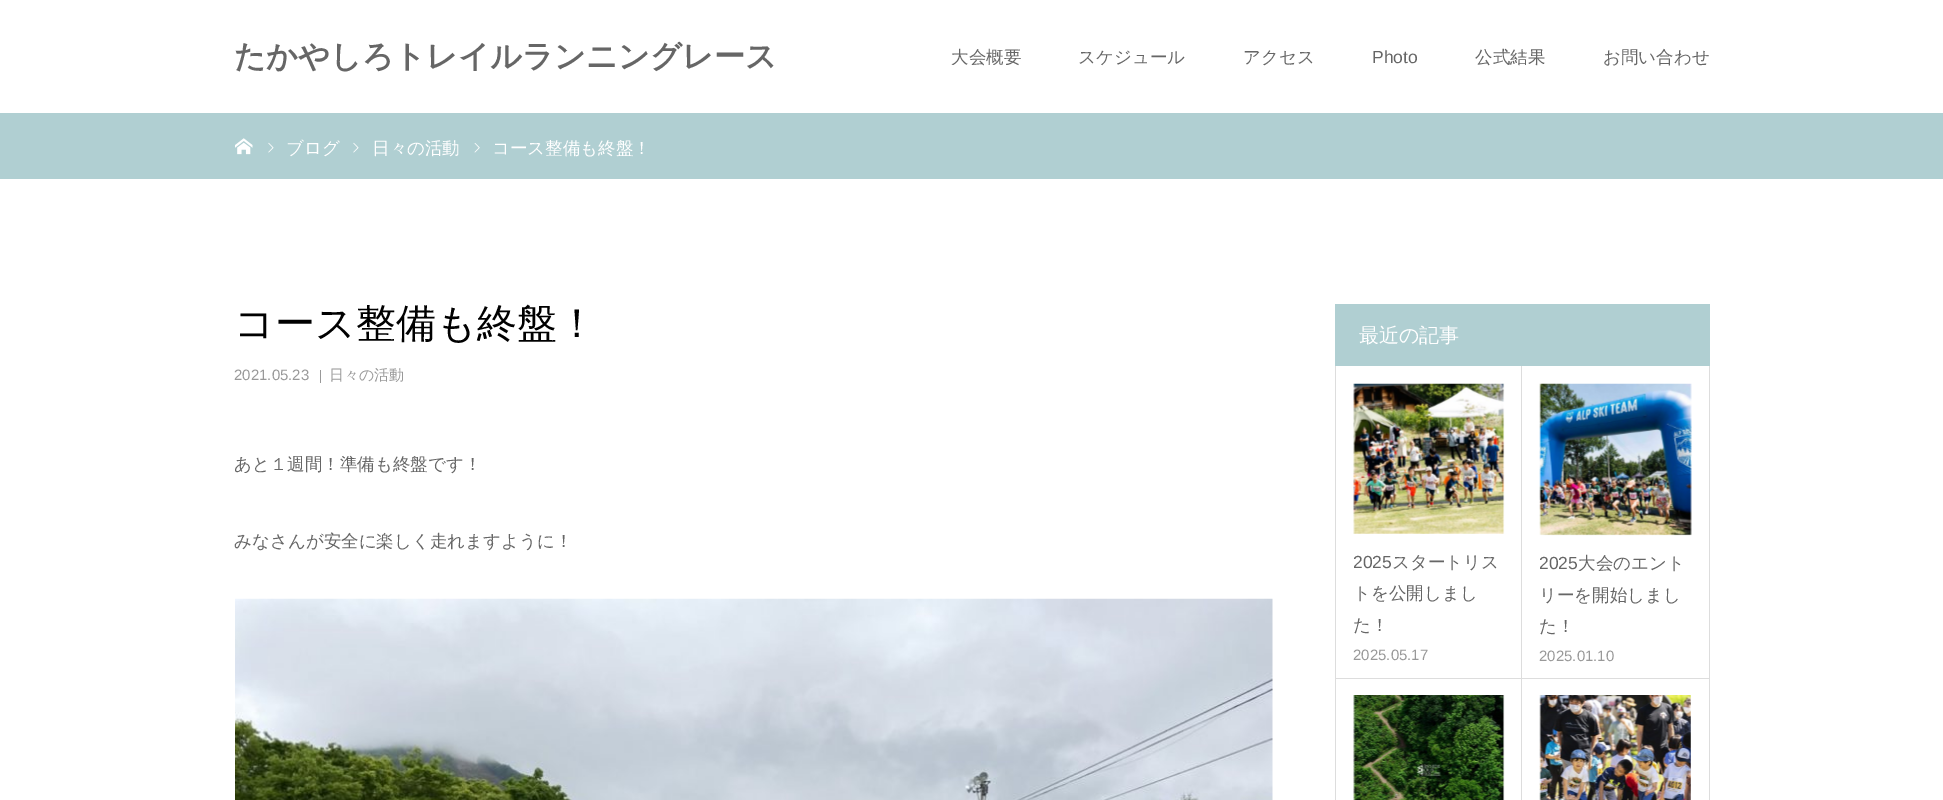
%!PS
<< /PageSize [1943 800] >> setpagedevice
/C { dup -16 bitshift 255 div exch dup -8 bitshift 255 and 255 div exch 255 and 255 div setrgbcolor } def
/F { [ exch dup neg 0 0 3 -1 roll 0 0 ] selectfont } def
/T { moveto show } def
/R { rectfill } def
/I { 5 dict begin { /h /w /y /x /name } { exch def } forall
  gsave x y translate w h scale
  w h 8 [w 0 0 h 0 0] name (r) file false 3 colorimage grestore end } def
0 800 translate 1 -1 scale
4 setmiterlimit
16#FFFFFF C
0 0 1943 800 R
/WenQuanYiZenHei-Bold 31.25 F
16#666666 C
(たかやしろトレイルランニングレース) 234 67 T
/WenQuanYiZenHei-Medium 17.5 F
(大会概要) 951 63 T
(スケジュール) 1078 63 T
(アクセス) 1243 63 T
/LiberationSans-Regular 17.5 F
(Photo) 1372 63 T
/WenQuanYiZenHei-Medium 17.5 F
(公式結果) 1475 63 T
(お問い合わせ) 1603 63 T
16#B0CFD2 C
0 113 1943 66 R
(1.rgb) 235 138 18 17 I
(2.rgb) 268 142 6 11 I
16#FFFFFF C
(ブログ) 286 154 T
(2.rgb) 353 142 6 11 I
(日々の活動) 372 154 T
(3.rgb) 474 143 6 10 I
(コース整備も終盤！) 492 154 T
/WenQuanYiZenHei-Medium 40 F
16#000000 C
(コース整備も終盤！) 234 337 T
/LiberationSans-Regular 15 F
16#999999 C
(2021.05.23) 234 380 T
320 370 1 13 R
/WenQuanYiZenHei-Medium 15 F
(日々の活動) 329 380 T
/WenQuanYiZenHei-Medium 17.5 F
16#666666 C
(あと１週間！準備も終盤です！) 234 470 T
(みなさんが安全に楽しく走れますように！) 234 547 T
(4.rgb) 235 598 1038 202 I
16#B0CFD2 C
1335 304 375 62 R
/WenQuanYiZenHei-Medium 20 F
16#FFFFFF C
(最近の記事) 1359 342 T
16#DDDDDD C
1709 366 1 434 R
1335 366 1 434 R
1521 366 1 313 R
1336 678 373 1 R
(5.rgb) 1353 383 152 151 I
/LiberationSans-Regular 17.5 F
16#666666 C
(2025) 1353 568 T
/WenQuanYiZenHei-Medium 17.5 F
(スタートリス) 1392 568 T
(トを公開しまし) 1353 599 T
(た！) 1353 631 T
/LiberationSans-Regular 15 F
16#999999 C
(2025.05.17) 1353 660 T
(6.rgb) 1539 383 153 153 I
/LiberationSans-Regular 17.5 F
16#666666 C
(2025) 1539 569 T
/WenQuanYiZenHei-Medium 17.5 F
(大会のエント) 1578 569 T
(リーを開始しまし) 1539 601 T
(た！) 1539 632 T
/LiberationSans-Regular 15 F
16#999999 C
(2025.01.10) 1539 661 T
16#DDDDDD C
1521 678 1 122 R
(7.rgb) 1353 695 152 105 I
(8.rgb) 1539 695 152 105 I
showpage
